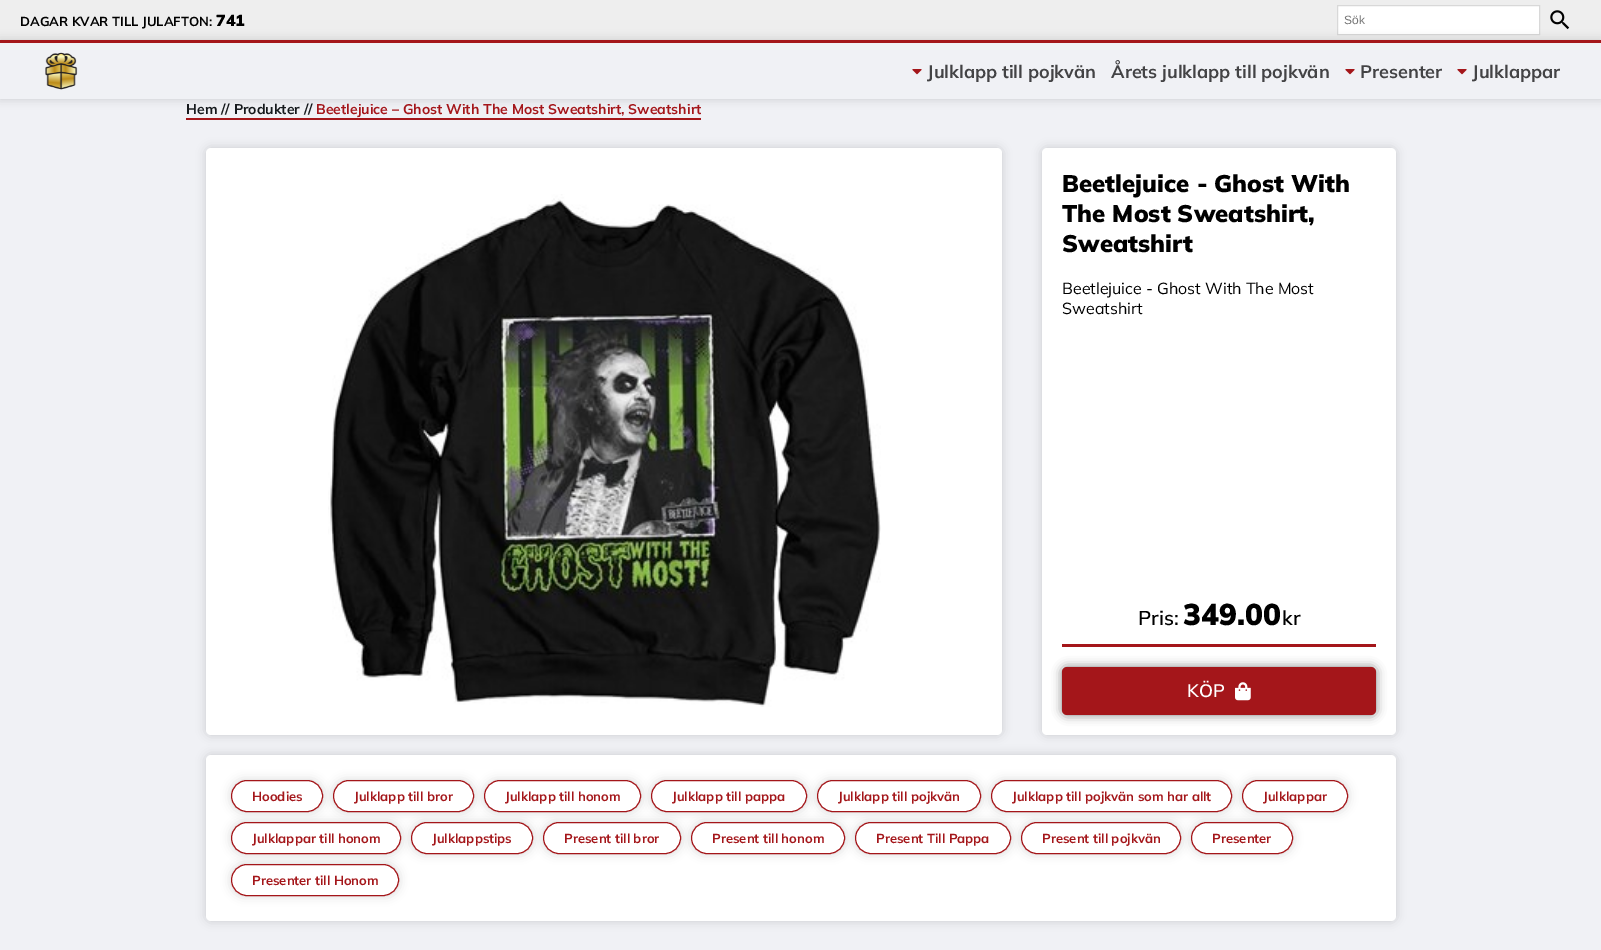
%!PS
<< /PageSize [1601 950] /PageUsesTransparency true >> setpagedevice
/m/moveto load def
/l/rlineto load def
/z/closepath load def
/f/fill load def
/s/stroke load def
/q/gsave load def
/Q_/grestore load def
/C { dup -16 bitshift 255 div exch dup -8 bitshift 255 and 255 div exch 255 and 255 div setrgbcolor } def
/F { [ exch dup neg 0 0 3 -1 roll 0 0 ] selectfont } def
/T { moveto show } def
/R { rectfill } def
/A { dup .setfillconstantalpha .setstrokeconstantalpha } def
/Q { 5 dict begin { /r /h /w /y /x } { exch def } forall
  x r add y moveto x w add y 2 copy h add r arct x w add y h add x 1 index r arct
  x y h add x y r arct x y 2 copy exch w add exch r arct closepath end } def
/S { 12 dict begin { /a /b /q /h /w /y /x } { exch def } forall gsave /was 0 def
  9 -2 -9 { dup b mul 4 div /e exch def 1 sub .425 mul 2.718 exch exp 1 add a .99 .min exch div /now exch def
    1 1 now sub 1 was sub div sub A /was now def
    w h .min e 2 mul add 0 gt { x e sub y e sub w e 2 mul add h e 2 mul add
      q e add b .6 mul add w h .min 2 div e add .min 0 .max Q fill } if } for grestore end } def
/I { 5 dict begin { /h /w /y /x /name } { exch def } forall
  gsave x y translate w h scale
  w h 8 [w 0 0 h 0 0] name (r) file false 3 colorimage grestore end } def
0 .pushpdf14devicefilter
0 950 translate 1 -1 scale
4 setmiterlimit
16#F0F1F5 C
0 0 1601 950 R
16#EEEEEE C
0 0 1601 40 R
/Mulish-Bold 13 F
16#000000 C
(DAGAR KVAR TILL JULAFTON:) 20 26 T
/Mulish-Black 16 F
(741) 216 26 T
16#FFFFFF C
1337.5 5.5 m 202 0 l 0 29 l -202 0 l z q f Q_
16#D8D8D8 C
s
/LiberationSans-Regular 12 F
16#757575 C
(Sök) 1344 24 T
(1.rgb) 1550 10 20 20 I
q
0 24 m 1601 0 l 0 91 l -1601 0 l z 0 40 m 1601 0 l 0 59 l -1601 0 l z eoclip newpath
16#000000 C
0 40 1601 59 0 5 .15 S
Q_
16#A4161A C
0 40 1601 3 R
(2.rgb) 45 52 33 38 I
(3.rgb) 912 69 10 6 I
/Mulish-Bold 18 F
16#434345 C
(Julklapp till pojkvän) 927 78 T
(Årets julklapp till pojkvän) 1111 78 T
(3.rgb) 1345 69 10 6 I
(Presenter) 1360 78 T
(3.rgb) 1457 69 10 6 I
(Julklappar) 1472 78 T
/Mulish-Bold 14 F
16#161A1D C
(Hem // Produkter //) 186 114 T
16#A4161A C
(Beetlejuice – Ghost With The Most Sweatshirt, Sweatshirt) 316 114 T
186 118 515 2 R
16#000000 C
206 148 796 587 5 5 .15 S
16#FFFFFF C
206 148 796 587 5 Q f
(4.rgb) 328 194 553 513 I
16#000000 C
1042 148 354 587 5 5 .15 S
16#FFFFFF C
1042 148 354 587 5 Q f
/Mulish-Black 24 F
16#000000 C
(Beetlejuice - Ghost With) 1062 192 T
(The Most Sweatshirt,) 1062 222 T
(Sweatshirt) 1062 252 T
/Mulish-Regular 16 F
(Beetlejuice - Ghost With The Most) 1062 294 T
(Sweatshirt) 1062 314 T
16#A4161A C
1062 644 314 3 R
/Mulish-SemiBold 20 F
16#000000 C
(Pris:) 1138 625 T
/Mulish-Black 30 F
(349.00) 1183 625 T
/Mulish-SemiBold 20 F
(kr) 1282 625 T
1062 667 314 48 5 5 .5 S
16#A4161A C
1062 667 314 48 5 Q f
/Mulish-SemiBold 18 F
16#FFFFFF C
(KÖP) 1187 697 T
(5.rgb) 1235 682 16 19 I
16#000000 C
206 755 1190 166 5 5 .15 S
16#FFFFFF C
206 755 1190 166 5 Q f
16#000000 C
231 780 92 32 16 5 .15 S
16#FFFFFF C
231.5 780.5 91 31 15.5 Q q f Q_
16#A4161A C
s
/Mulish-Bold 13 F
(Hoodies) 252 801 T
16#000000 C
333 780 141 32 16 5 .15 S
16#FFFFFF C
333.5 780.5 140 31 15.5 Q q f Q_
16#A4161A C
s
(Julklapp till bror) 354 801 T
16#000000 C
484 780 157 32 16 5 .15 S
16#FFFFFF C
484.5 780.5 156 31 15.5 Q q f Q_
16#A4161A C
s
(Julklapp till honom) 505 801 T
16#000000 C
651 780 156 32 16 5 .15 S
16#FFFFFF C
651.5 780.5 155 31 15.5 Q q f Q_
16#A4161A C
s
(Julklapp till pappa) 672 801 T
16#000000 C
817 780 164 32 16 5 .15 S
16#FFFFFF C
817.5 780.5 163 31 15.5 Q q f Q_
16#A4161A C
s
(Julklapp till pojkvän) 838 801 T
16#000000 C
991 780 241 32 16 5 .15 S
16#FFFFFF C
991.5 780.5 240 31 15.5 Q q f Q_
16#A4161A C
s
(Julklapp till pojkvän som har allt) 1012 801 T
16#000000 C
1242 780 106 32 16 5 .15 S
16#FFFFFF C
1242.5 780.5 105 31 15.5 Q q f Q_
16#A4161A C
s
(Julklappar) 1263 801 T
16#000000 C
231 822 170 32 16 5 .15 S
16#FFFFFF C
231.5 822.5 169 31 15.5 Q q f Q_
16#A4161A C
s
(Julklappar till honom) 252 843 T
16#000000 C
411 822 122 32 16 5 .15 S
16#FFFFFF C
411.5 822.5 121 31 15.5 Q q f Q_
16#A4161A C
s
(Julklappstips) 432 843 T
16#000000 C
543 822 138 32 16 5 .15 S
16#FFFFFF C
543.5 822.5 137 31 15.5 Q q f Q_
16#A4161A C
s
(Present till bror) 564 843 T
16#000000 C
691 822 154 32 16 5 .15 S
16#FFFFFF C
691.5 822.5 153 31 15.5 Q q f Q_
16#A4161A C
s
(Present till honom) 712 843 T
16#000000 C
855 822 156 32 16 5 .15 S
16#FFFFFF C
855.5 822.5 155 31 15.5 Q q f Q_
16#A4161A C
s
(Present Till Pappa) 876 843 T
16#000000 C
1021 822 160 32 16 5 .15 S
16#FFFFFF C
1021.5 822.5 159 31 15.5 Q q f Q_
16#A4161A C
s
(Present till pojkvän) 1042 843 T
16#000000 C
1191 822 102 32 16 5 .15 S
16#FFFFFF C
1191.5 822.5 101 31 15.5 Q q f Q_
16#A4161A C
s
(Presenter) 1212 843 T
16#000000 C
231 864 168 32 16 5 .15 S
16#FFFFFF C
231.5 864.5 167 31 15.5 Q q f Q_
16#A4161A C
s
(Presenter till Honom) 252 885 T
.poppdf14devicefilter showpage
